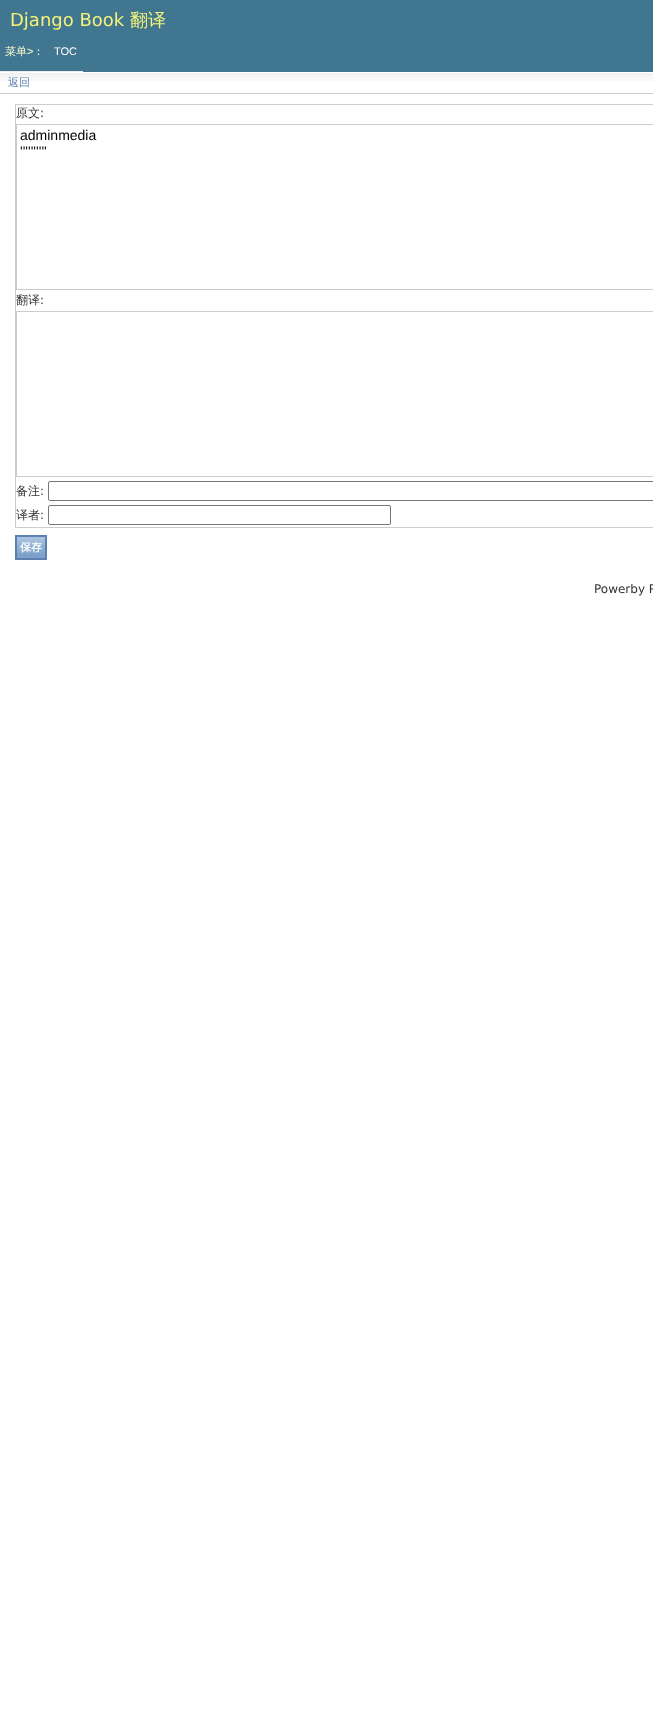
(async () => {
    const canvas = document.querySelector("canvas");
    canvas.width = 653;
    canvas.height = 1729;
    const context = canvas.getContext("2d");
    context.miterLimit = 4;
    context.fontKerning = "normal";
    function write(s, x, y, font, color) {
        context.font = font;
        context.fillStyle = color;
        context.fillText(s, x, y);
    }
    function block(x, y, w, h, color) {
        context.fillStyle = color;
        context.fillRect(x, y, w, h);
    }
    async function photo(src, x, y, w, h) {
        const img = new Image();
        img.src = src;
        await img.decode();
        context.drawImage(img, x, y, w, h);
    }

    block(0, 0, 653, 1729, "rgb(255, 255, 255)");
    block(0, 0, 653, 72, "rgb(65, 118, 144)");
    write("Django Book", 10, 26, "18px DejaVu Sans", "rgb(244, 243, 121)");
    write("翻译", 130, 26, "500 18px WenQuanYi Zen Hei", "rgb(244, 243, 121)");
    write("菜单", 5, 55, "500 11px WenQuanYi Zen Hei", "rgb(255, 255, 204)");
    write(">", 27, 55, "11px Liberation Sans", "rgb(255, 255, 204)");
    write("：", 33, 55, "500 11px WenQuanYi Zen Hei", "rgb(255, 255, 204)");
    block(0, 71, 83, 1, "rgb(238, 238, 238)");
    write("TOC", 54, 55, "11px Liberation Sans", "rgb(255, 255, 255)");
    await photo("media/1.png", 0, 73, 653, 8);
    block(0, 93, 653, 1, "rgb(204, 204, 204)");
    write("返回", 8, 86, "500 11px WenQuanYi Zen Hei", "rgb(91, 128, 178)");
    context.strokeStyle = "rgb(204, 204, 204)";
    context.strokeRect(15.5, 104.5, 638, 423);
    write("原文", 16, 117, "500 12px WenQuanYi Zen Hei", "rgb(51, 51, 51)");
    write(":", 40, 117, "12px DejaVu Sans", "rgb(51, 51, 51)");
    context.strokeRect(16.5, 124.5, 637, 165);
    write("adminmedia", 20, 140, "14px Liberation Sans", "rgb(0, 0, 0)");
    write("''''''''''", 20, 156, "14px Liberation Sans", "rgb(0, 0, 0)");
    write("翻译", 16, 304, "500 12px WenQuanYi Zen Hei", "rgb(51, 51, 51)");
    write(":", 40, 304, "12px DejaVu Sans", "rgb(51, 51, 51)");
    context.strokeRect(16.5, 311.5, 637, 165);
    write("备注", 16, 495, "500 12px WenQuanYi Zen Hei", "rgb(51, 51, 51)");
    write(":", 40, 495, "12px DejaVu Sans", "rgb(51, 51, 51)");
    context.beginPath();
    context.roundRect(48.5, 481.5, 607, 19, 1.5);
    context.strokeStyle = "rgb(118, 118, 118)";
    context.stroke();
    write("译者", 16, 519, "500 12px WenQuanYi Zen Hei", "rgb(51, 51, 51)");
    write(":", 40, 519, "12px DejaVu Sans", "rgb(51, 51, 51)");
    context.beginPath();
    context.roundRect(48.5, 505.5, 342, 19, 1.5);
    context.stroke();
    block(17, 554, 28, 4, "rgb(124, 160, 199)");
    await photo("media/2.png", 17, 537, 28, 17);
    context.strokeStyle = "rgb(91, 128, 178)";
    context.lineWidth = 2;
    context.strokeRect(16, 536, 30, 23);
    write("保存", 20, 551, "bold 11px WenQuanYi Zen Hei", "rgb(255, 255, 255)");
    write("Powerby P", 594, 593, "12px DejaVu Sans", "rgb(51, 51, 51)");
})();
